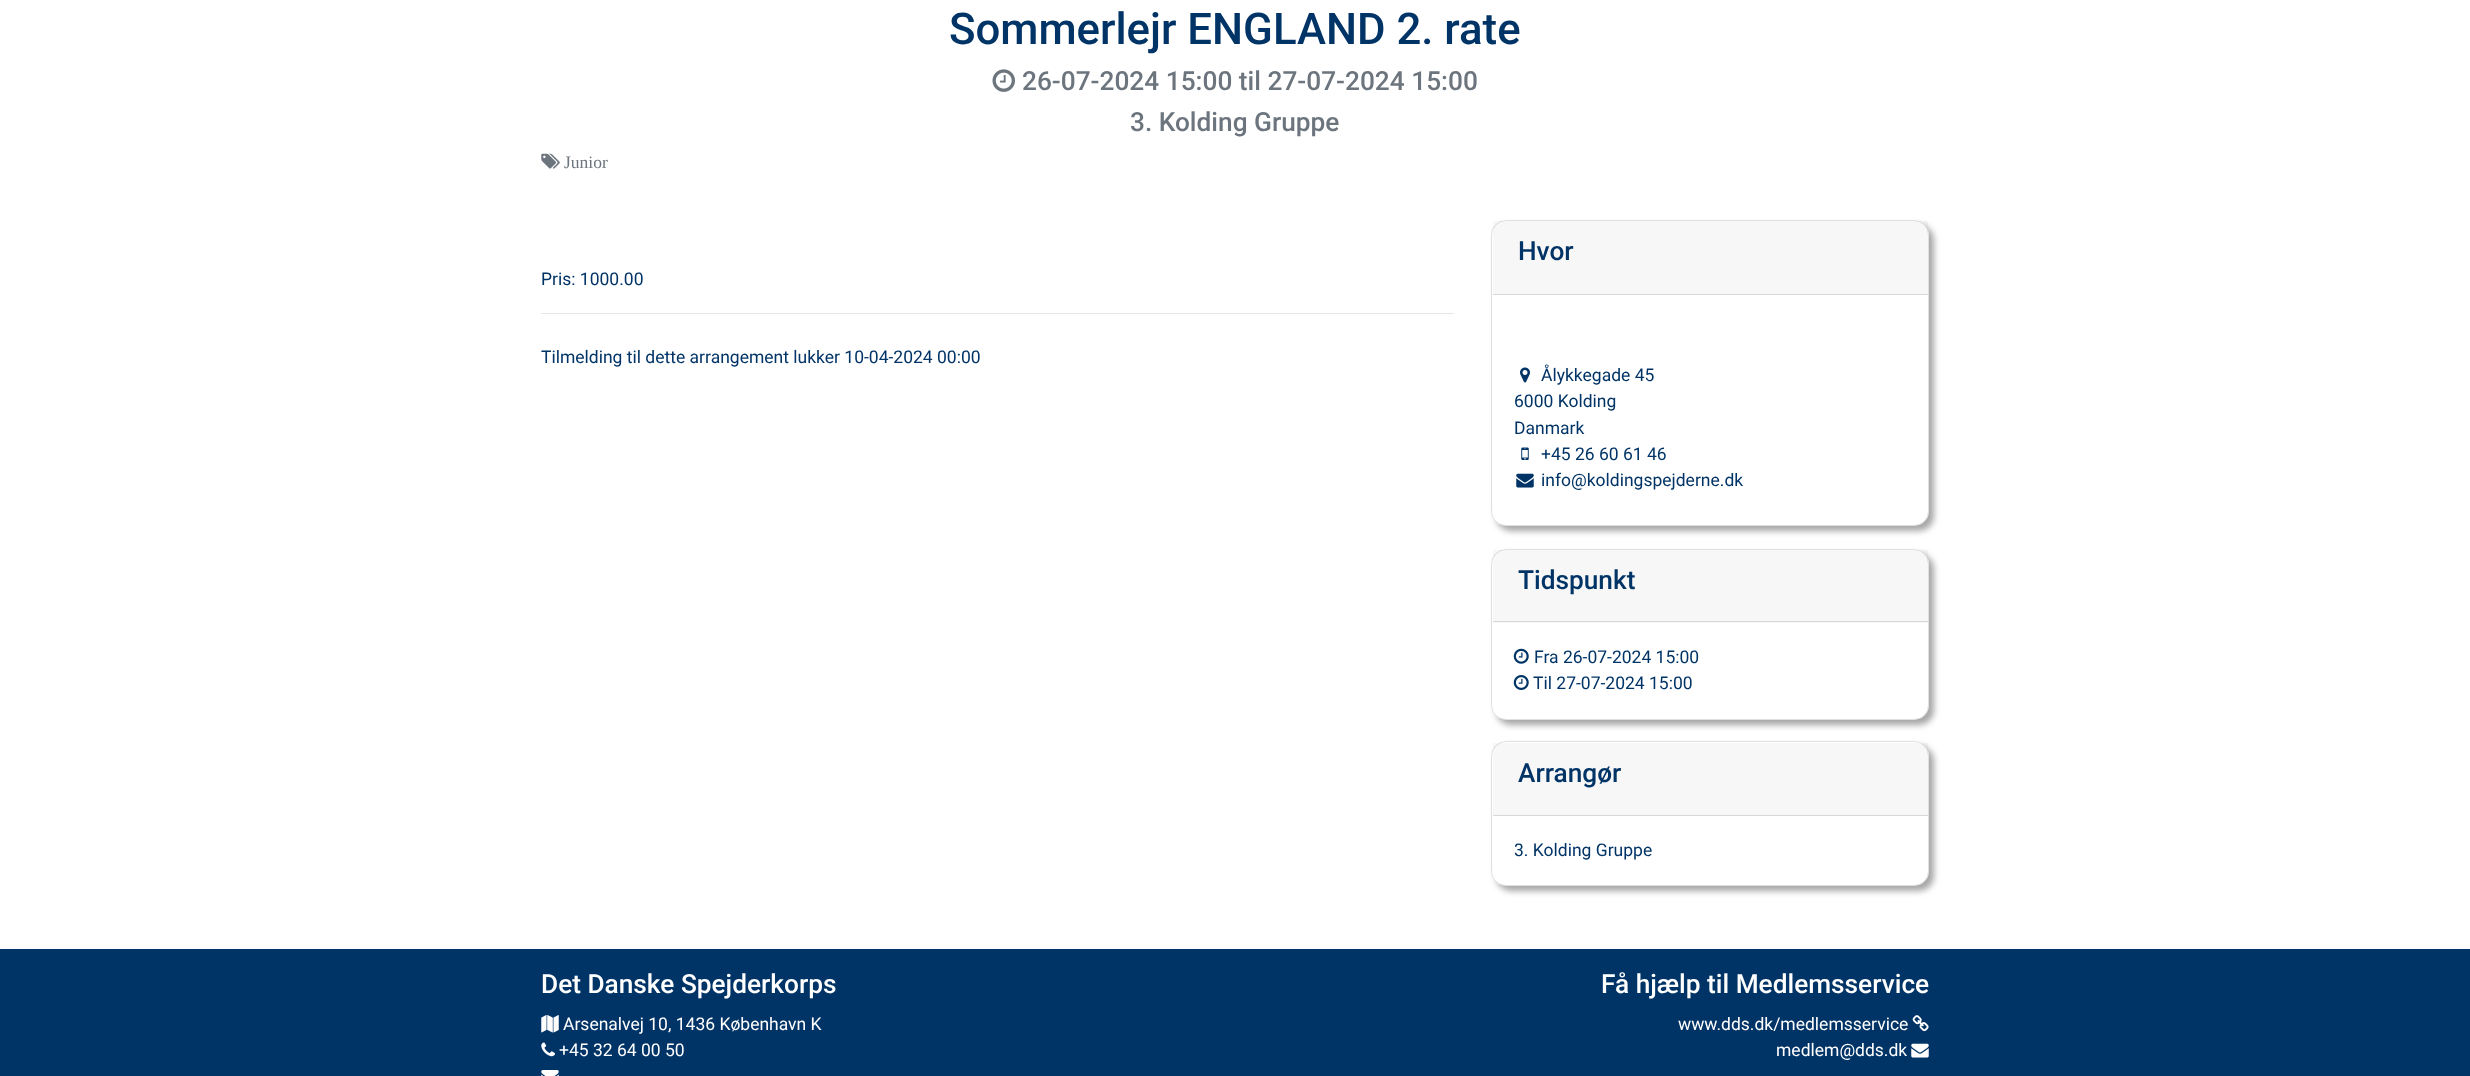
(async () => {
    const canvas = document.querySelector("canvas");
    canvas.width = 2470;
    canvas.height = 1076;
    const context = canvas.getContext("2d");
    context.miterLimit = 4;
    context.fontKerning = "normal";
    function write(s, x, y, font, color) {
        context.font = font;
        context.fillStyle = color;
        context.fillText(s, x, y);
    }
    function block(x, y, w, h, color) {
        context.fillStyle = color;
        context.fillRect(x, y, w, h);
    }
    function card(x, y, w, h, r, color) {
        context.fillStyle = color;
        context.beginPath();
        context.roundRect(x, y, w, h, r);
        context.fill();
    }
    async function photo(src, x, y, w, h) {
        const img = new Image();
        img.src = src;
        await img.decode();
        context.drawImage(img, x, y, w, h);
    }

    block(0, 0, 2470, 1076, "rgb(255, 255, 255)");
    write("Sommerlejr ENGLAND 2. rate", 949, 44, "500 43.75px Roboto", "rgb(0, 51, 102)");
    await photo("media/1.png", 992, 69, 23, 23);
    write("26-07-2024 15:00 til 27-07-2024 15:00", 1022, 90, "500 26.25px Roboto", "rgb(108, 117, 125)");
    write("3. Kolding Gruppe", 1130, 131, "500 26.25px Roboto", "rgb(108, 117, 125)");
    await photo("media/2.png", 541, 153, 19, 16);
    write("Junior", 564, 168, "17.5px Liberation Serif", "rgb(108, 117, 125)");
    write("Pris: 1000.00", 541, 285, "17.5px Roboto", "rgb(0, 51, 102)");
    block(541, 313, 913, 1, "rgb(230, 230, 230)");
    write("Tilmelding til dette arrangement lukker 10-04-2024 00:00", 541, 363, "17.5px Roboto", "rgb(0, 51, 102)");
    context.fillStyle = "rgba(0, 0, 0, 0.35)";
    context.filter = "blur(3px)";
    context.beginPath();
    context.roundRect(1496, 225, 438, 306, 15);
    context.fill();
    context.filter = "none";
    card(1491, 220, 438, 306, 15, "rgb(255, 255, 255)");
    context.beginPath();
    context.roundRect(1491.5, 220.5, 437, 305, 14.5);
    context.strokeStyle = "rgba(0, 0, 0, 0.12)";
    context.stroke();
    block(1493, 221, 435, 73, "rgba(0, 0, 0, 0.03)");
    block(1493, 294, 435, 1, "rgb(216, 216, 216)");
    write("Hvor", 1518, 260, "500 26.25px Roboto", "rgb(0, 51, 102)");
    await photo("media/3.png", 1520, 367, 10, 16);
    write("Ålykkegade 45", 1541, 381, "17.5px Roboto", "rgb(0, 51, 102)");
    write("6000 Kolding", 1514, 407, "17.5px Roboto", "rgb(0, 51, 102)");
    write("Danmark", 1514, 434, "17.5px Roboto", "rgb(0, 51, 102)");
    await photo("media/4.png", 1521, 447, 8, 13);
    write("+45 26 60 61 46", 1541, 460, "17.5px Roboto", "rgb(0, 51, 102)");
    await photo("media/5.png", 1516, 473, 18, 15);
    write("info@koldingspejderne.dk", 1541, 486, "17.5px Roboto", "rgb(0, 51, 102)");
    context.fillStyle = "rgba(0, 0, 0, 0.35)";
    context.filter = "blur(3px)";
    context.beginPath();
    context.roundRect(1496, 554, 438, 171, 15);
    context.fill();
    context.filter = "none";
    card(1491, 549, 438, 171, 15, "rgb(255, 255, 255)");
    context.beginPath();
    context.roundRect(1491.5, 549.5, 437, 170, 14.5);
    context.stroke();
    block(1493, 550, 435, 73, "rgba(0, 0, 0, 0.03)");
    block(1493, 621, 435, 1, "rgb(216, 216, 216)");
    write("Tidspunkt", 1518, 589, "500 26.25px Roboto", "rgb(0, 51, 102)");
    await photo("media/6.png", 1513, 648, 16, 16);
    write("Fra 26-07-2024 15:00", 1534, 663, "17.5px Roboto", "rgb(0, 51, 102)");
    await photo("media/7.png", 1513, 675, 16, 15);
    write("Til 27-07-2024 15:00", 1533, 689, "17.5px Roboto", "rgb(0, 51, 102)");
    context.fillStyle = "rgba(0, 0, 0, 0.35)";
    context.filter = "blur(3px)";
    context.beginPath();
    context.roundRect(1496, 746, 438, 145, 15);
    context.fill();
    context.filter = "none";
    card(1491, 741, 438, 145, 15, "rgb(255, 255, 255)");
    context.beginPath();
    context.roundRect(1491.5, 741.5, 437, 144, 14.5);
    context.stroke();
    block(1493, 743, 435, 72, "rgba(0, 0, 0, 0.03)");
    block(1493, 815, 435, 1, "rgb(216, 216, 216)");
    write("Arrangør", 1518, 782, "500 26.25px Roboto", "rgb(0, 51, 102)");
    write("3. Kolding Gruppe", 1514, 856, "17.5px Roboto", "rgb(0, 51, 102)");
    block(0, 949, 2470, 127, "rgb(0, 51, 102)");
    write("Det Danske Spejderkorps", 541, 993, "500 26.25px Roboto", "rgb(255, 255, 255)");
    await photo("media/8.png", 541, 1015, 18, 18);
    write("Arsenalvej 10, 1436 København K", 563, 1030, "17.5px Roboto", "rgb(255, 255, 255)");
    await photo("media/9.png", 541, 1042, 14, 15);
    write("+45 32 64 00 50", 559, 1056, "17.5px Roboto", "rgb(255, 255, 255)");
    await photo("media/10.png", 541, 1070, 18, 6);
    write("Få hjælp til Medlemsservice", 1601, 993, "500 26.25px Roboto", "rgb(255, 255, 255)");
    write("www.dds.dk/medlemsservice", 1678, 1030, "17.5px Roboto", "rgb(255, 255, 255)");
    await photo("media/11.png", 1912, 1015, 17, 17);
    write("medlem@dds.dk", 1776, 1056, "17.5px Roboto", "rgb(255, 255, 255)");
    await photo("media/12.png", 1911, 1043, 18, 15);
})();
